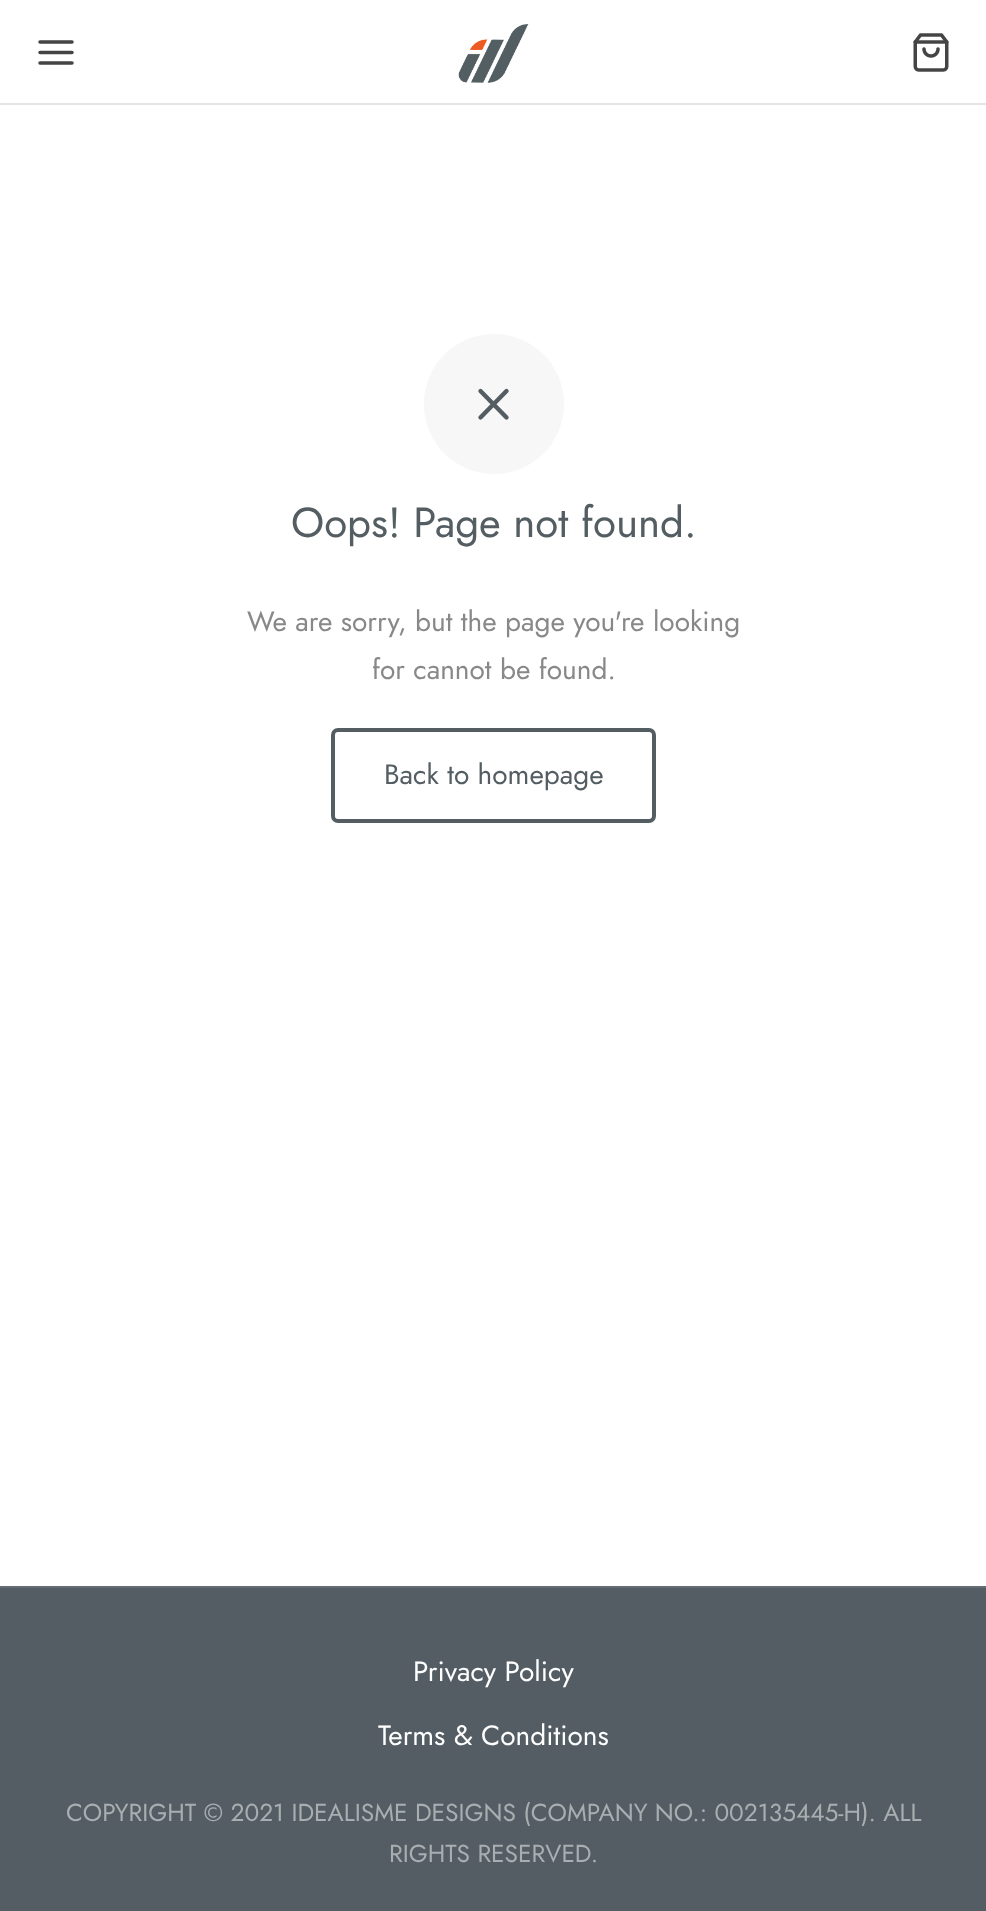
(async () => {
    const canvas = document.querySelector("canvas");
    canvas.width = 986;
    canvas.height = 1911;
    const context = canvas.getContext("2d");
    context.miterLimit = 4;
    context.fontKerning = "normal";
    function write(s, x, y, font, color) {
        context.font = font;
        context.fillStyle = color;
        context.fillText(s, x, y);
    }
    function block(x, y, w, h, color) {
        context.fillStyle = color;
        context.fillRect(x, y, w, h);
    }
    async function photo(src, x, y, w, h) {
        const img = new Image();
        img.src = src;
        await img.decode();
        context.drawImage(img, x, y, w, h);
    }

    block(0, 0, 986, 1911, "rgb(255, 255, 255)");
    context.beginPath();
    context.moveTo(40, 52.5);
    context.lineTo(72, 52.5);
    context.moveTo(40, 42);
    context.lineTo(72, 42);
    context.moveTo(40, 63);
    context.lineTo(72, 63);
    context.strokeStyle = "rgb(68, 68, 68)";
    context.lineWidth = 3.5;
    context.lineCap = "round";
    context.lineJoin = "round";
    context.stroke();
    await photo("media/1.png", 458, 24, 71, 59);
    await photo("media/2.png", 913, 33, 36, 39);
    block(0, 103, 986, 2, "rgb(230, 230, 230)");
    context.fillStyle = "rgb(247, 247, 247)";
    context.beginPath();
    context.arc(494, 404, 70, 0, Math.PI * 2);
    context.fill();
    context.beginPath();
    context.moveTo(506.5, 391);
    context.lineTo(480.5, 417.5);
    context.moveTo(480.5, 391);
    context.lineTo(506.5, 417.5);
    context.strokeStyle = "rgb(83, 93, 98)";
    context.lineWidth = 4.4;
    context.stroke();
    write("Oops! Page not found.", 291, 537, "42px Jost", "rgb(83, 93, 98)");
    write("We are sorry, but the page you're looking", 247, 631, "28px Jost", "rgb(136, 136, 136)");
    write("for cannot be found.", 372, 679, "28px Jost", "rgb(136, 136, 136)");
    context.beginPath();
    context.roundRect(333, 730, 321, 91, 5);
    context.lineWidth = 4;
    context.lineJoin = "miter";
    context.stroke();
    write("Back to homepage", 384, 784, "28px Jost", "rgb(83, 93, 98)");
    block(0, 1588, 986, 323, "rgb(83, 93, 99)");
    block(0, 1586, 986, 2, "rgb(100, 109, 115)");
    write("Privacy Policy", 413, 1681, "28px Jost", "rgb(255, 255, 255)");
    write("Terms & Conditions", 378, 1745, "28px Jost", "rgb(255, 255, 255)");
    write("COPYRIGHT © 2021 IDEALISME DESIGNS (COMPANY NO.: 002135445-H). ALL", 66, 1821, "24.5px Jost", "rgb(169, 174, 177)");
    write("RIGHTS RESERVED.", 389, 1862, "24.5px Jost", "rgb(169, 174, 177)");
})();
